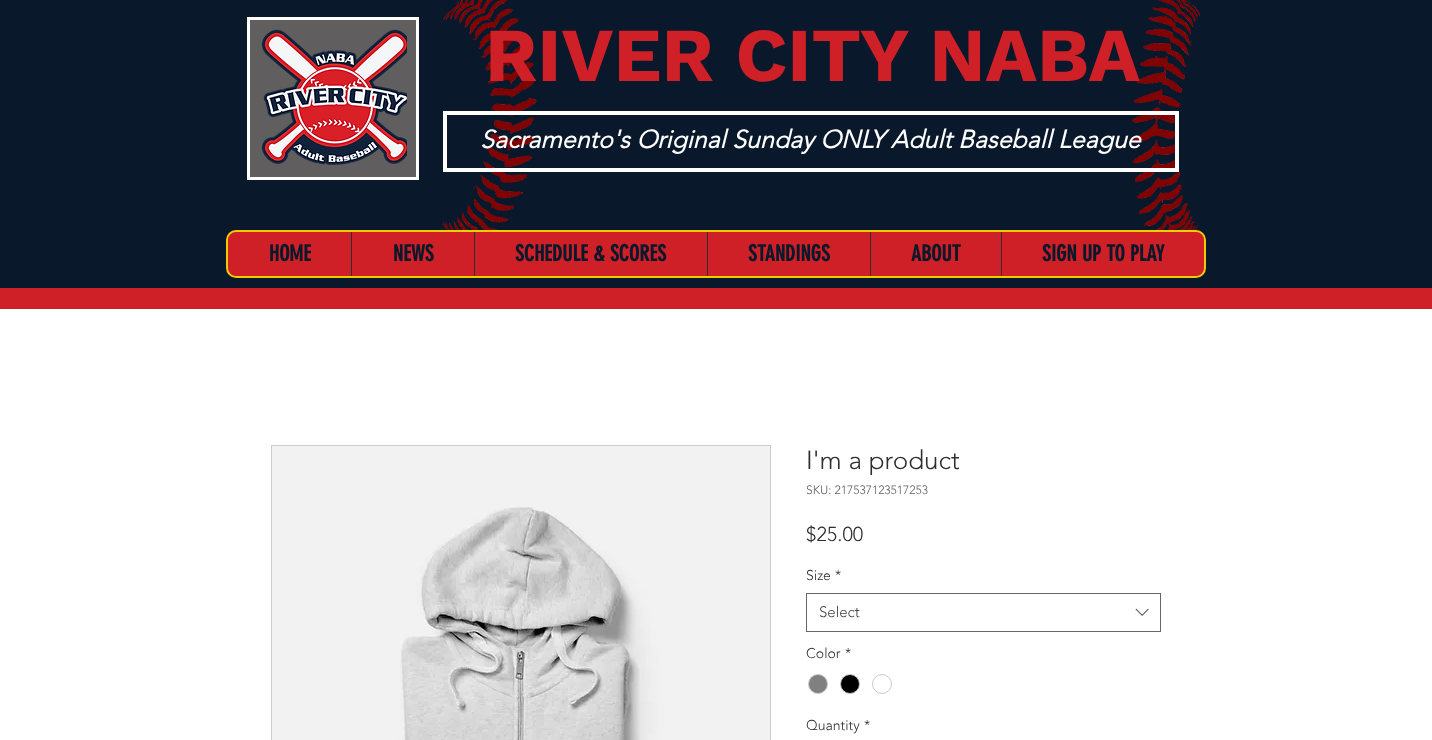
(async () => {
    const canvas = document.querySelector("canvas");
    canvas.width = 1432;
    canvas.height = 740;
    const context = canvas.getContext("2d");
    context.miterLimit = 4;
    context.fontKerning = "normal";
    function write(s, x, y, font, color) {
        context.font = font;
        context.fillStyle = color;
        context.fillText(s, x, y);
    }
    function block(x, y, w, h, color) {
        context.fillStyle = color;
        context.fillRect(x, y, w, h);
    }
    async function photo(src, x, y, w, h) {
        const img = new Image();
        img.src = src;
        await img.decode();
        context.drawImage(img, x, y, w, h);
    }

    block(0, 0, 1432, 740, "rgb(255, 255, 255)");
    block(0, 0, 1432, 288, "rgb(9, 24, 43)");
    context.fillStyle = "rgb(96, 94, 94)";
    context.beginPath();
    context.rect(248.5, 18.5, 169, 160);
    context.fill();
    context.strokeStyle = "rgb(255, 255, 255)";
    context.lineWidth = 3;
    context.stroke();
    await photo("media/1.png", 261, 29, 146, 136);
    await photo("media/2.png", 443, 0, 94, 230);
    await photo("media/3.png", 1132, 0, 68, 230);
    write("RIVER CITY NABA", 485, 81, "bold 76px Work Sans", "rgb(206, 32, 38)");
    context.lineWidth = 4;
    context.strokeRect(445, 113, 732, 57);
    write("Sacramento's Original Sunday ONLY Adult Baseball League", 480, 148, "italic bold 25px 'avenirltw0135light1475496'", "rgb(255, 255, 255)");
    context.fillStyle = "rgb(206, 32, 38)";
    context.beginPath();
    context.roundRect(227, 231, 978, 46, 9);
    context.fill();
    context.strokeStyle = "rgb(241, 204, 1)";
    context.lineWidth = 2;
    context.stroke();
    write("HOME", 269, 261, "bold 22px 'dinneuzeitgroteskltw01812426'", "rgb(9, 24, 43)");
    block(351, 232, 1, 44, "rgb(47, 46, 46)");
    write("NEWS", 393, 261, "bold 22px 'dinneuzeitgroteskltw01812426'", "rgb(9, 24, 43)");
    block(474, 232, 1, 44, "rgb(47, 46, 46)");
    write("SCHEDULE & SCORES", 515, 261, "bold 22px 'dinneuzeitgroteskltw01812426'", "rgb(9, 24, 43)");
    block(707, 232, 1, 44, "rgb(47, 46, 46)");
    write("STANDINGS", 748, 261, "bold 22px 'dinneuzeitgroteskltw01812426'", "rgb(9, 24, 43)");
    block(870, 232, 1, 44, "rgb(47, 46, 46)");
    write("ABOUT", 911, 261, "bold 22px 'dinneuzeitgroteskltw01812426'", "rgb(9, 24, 43)");
    block(1001, 232, 1, 44, "rgb(47, 46, 46)");
    write("SIGN UP TO PLAY", 1042, 261, "bold 22px 'dinneuzeitgroteskltw01812426'", "rgb(9, 24, 43)");
    block(0, 288, 1432, 21, "rgb(206, 32, 38)");
    context.strokeStyle = "rgb(204, 204, 204)";
    context.lineWidth = 1;
    context.strokeRect(271.5, 445.5, 499, 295);
    await photo("media/4.png", 272, 446, 498, 294);
    write("I'm a product", 806, 469, "300 26px 'avenirltw0135light1475496'", "rgb(47, 46, 46)");
    write("SKU: 217537123517253", 806, 494, "300 12px 'avenirltw0135light1475496'", "rgb(96, 94, 94)");
    write("$25.00", 806, 541, "300 20px 'avenirltw0135light1475496'", "rgb(47, 46, 46)");
    write("Size", 806, 580, "300 14px 'avenirltw0135light1475496'", "rgb(47, 46, 46)");
    write("*", 835, 580, "300 14px 'avenirltw0135light1475496'", "rgb(47, 46, 46)");
    context.strokeStyle = "rgb(102, 102, 102)";
    context.strokeRect(806.5, 593.5, 354, 38);
    write("Select", 819, 617, "300 15px 'avenirltw0135light1475496'", "rgb(68, 68, 68)");
    await photo("media/5.png", 1135, 608, 14, 8);
    write("Color", 806, 658, "300 14px 'avenirltw0135light1475496'", "rgb(47, 46, 46)");
    write("*", 845, 658, "300 14px 'avenirltw0135light1475496'", "rgb(47, 46, 46)");
    context.fillStyle = "rgb(128, 128, 128)";
    context.beginPath();
    context.arc(818, 684, 9.5, 0, Math.PI * 2);
    context.fill();
    context.strokeStyle = "rgb(201, 201, 201)";
    context.stroke();
    context.fillStyle = "rgb(0, 0, 0)";
    context.beginPath();
    context.arc(850, 684, 9.5, 0, Math.PI * 2);
    context.fill();
    context.stroke();
    context.beginPath();
    context.arc(882, 684, 9.5, 0, Math.PI * 2);
    context.stroke();
    write("Quantity", 806, 730, "300 14px 'avenirltw0135light1475496'", "rgb(47, 46, 46)");
    write("*", 864, 730, "300 14px 'avenirltw0135light1475496'", "rgb(47, 46, 46)");
})();
